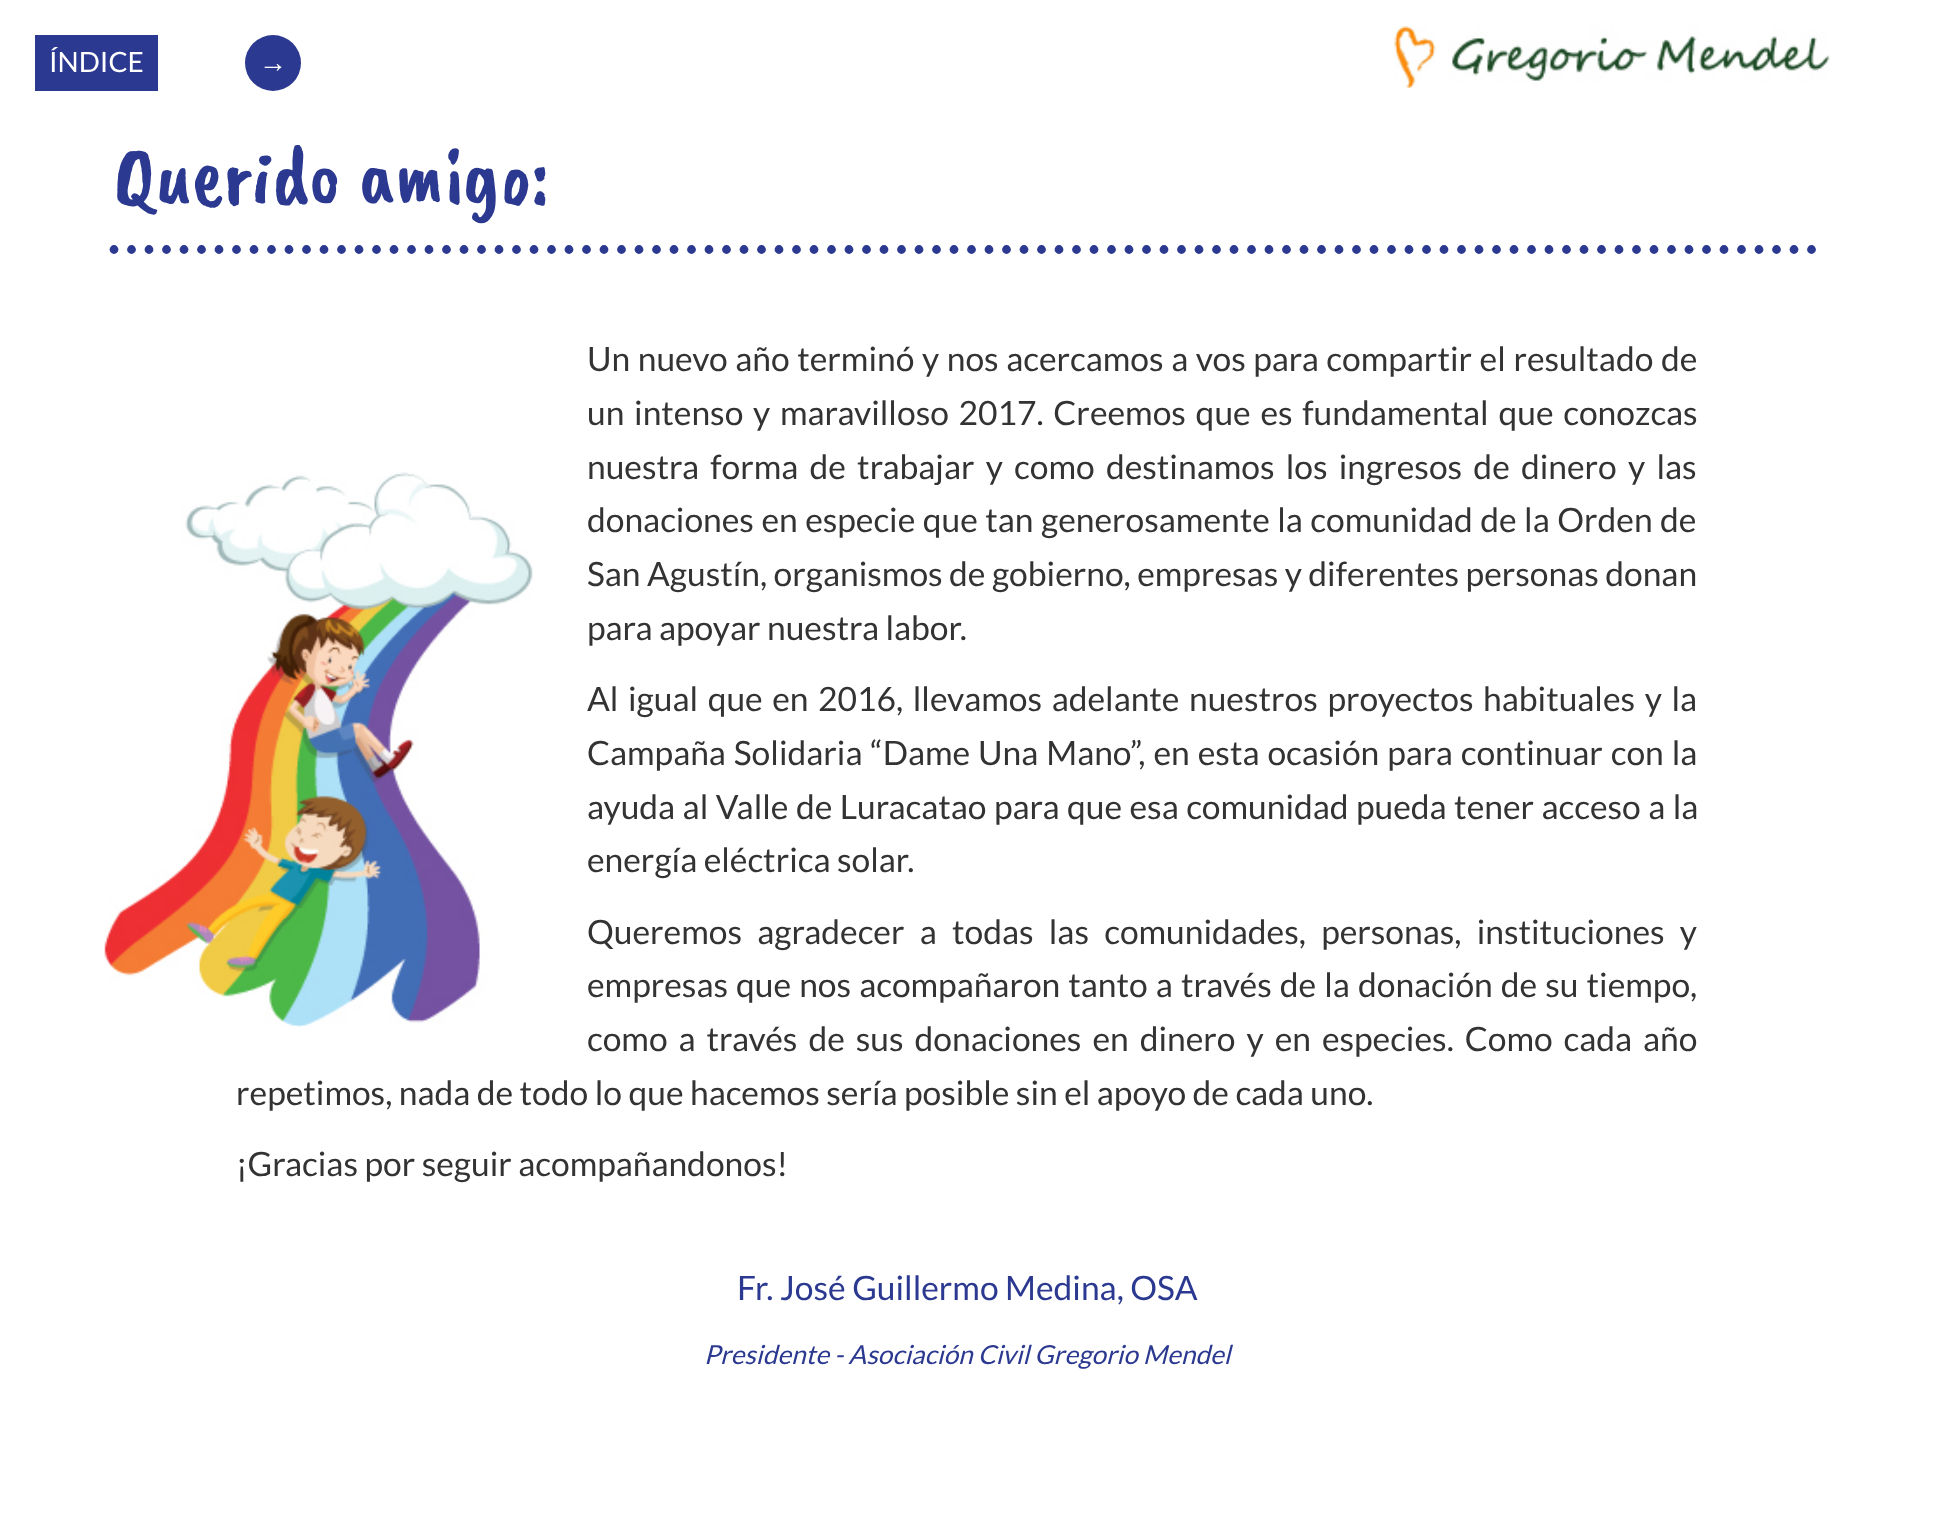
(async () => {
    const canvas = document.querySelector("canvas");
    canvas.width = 1933;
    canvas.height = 1513;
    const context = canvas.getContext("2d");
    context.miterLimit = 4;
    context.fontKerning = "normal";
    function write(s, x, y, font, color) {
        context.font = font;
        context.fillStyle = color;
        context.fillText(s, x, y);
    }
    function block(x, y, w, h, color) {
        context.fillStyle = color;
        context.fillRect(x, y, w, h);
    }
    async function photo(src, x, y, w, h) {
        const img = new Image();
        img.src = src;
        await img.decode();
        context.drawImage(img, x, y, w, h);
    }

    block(0, 0, 1933, 1513, "rgb(255, 255, 255)");
    await photo("media/1.png", 1394, 26, 436, 62);
    block(35, 35, 123, 56, "rgb(43, 57, 144)");
    write("ÍNDICE", 49, 72, "28px Lato", "rgb(255, 255, 255)");
    context.fillStyle = "rgb(43, 57, 144)";
    context.beginPath();
    context.arc(273, 63, 28, 0, Math.PI * 2);
    context.fill();
    write("→", 259, 72, "bold 28px Liberation Sans", "rgb(255, 255, 255)");
    context.beginPath();
    context.moveTo(114, 249.5);
    context.lineTo(1820, 249.5);
    context.strokeStyle = "rgb(43, 57, 144)";
    context.lineWidth = 8.8;
    context.lineCap = "round";
    context.setLineDash([0, 17.5]);
    context.stroke();
    write("Querido amigo:", 114, 203, "84px Caveat Brush", "rgb(43, 57, 144)");
    await photo("media/2.png", 104, 472, 429, 556);
    context.wordSpacing = "1.1px";
    write("Un nuevo año terminó y nos acercamos a vos para compartir el resultado de", 587, 371, "33.6px Lato", "rgb(51, 51, 51)");
    context.wordSpacing = "3.25px";
    write("un intenso y maravilloso 2017. Creemos que es fundamental que conozcas", 587, 425, "33.6px Lato", "rgb(51, 51, 51)");
    context.wordSpacing = "4.75px";
    write("nuestra forma de trabajar y como destinamos los ingresos de dinero y las", 587, 479, "33.6px Lato", "rgb(51, 51, 51)");
    context.wordSpacing = "1px";
    write("donaciones en especie que tan generosamente la comunidad de la Orden de", 587, 532, "33.6px Lato", "rgb(51, 51, 51)");
    context.wordSpacing = "0px";
    write("San Agustín, organismos de gobierno, empresas y diferentes personas donan", 587, 586, "33.6px Lato", "rgb(51, 51, 51)");
    write("para apoyar nuestra labor.", 587, 640, "33.6px Lato", "rgb(51, 51, 51)");
    context.wordSpacing = "3.1px";
    write("Al igual que en 2016, llevamos adelante nuestros proyectos habituales y la", 587, 711, "33.6px Lato", "rgb(51, 51, 51)");
    context.wordSpacing = "1.5px";
    write("Campaña Solidaria “Dame Una Mano”, en esta ocasión para continuar con la", 587, 765, "33.6px Lato", "rgb(51, 51, 51)");
    context.wordSpacing = "1px";
    write("ayuda al Valle de Luracatao para que esa comunidad pueda tener acceso a la", 587, 819, "33.6px Lato", "rgb(51, 51, 51)");
    context.wordSpacing = "0px";
    write("energía eléctrica solar.", 587, 872, "33.6px Lato", "rgb(51, 51, 51)");
    context.wordSpacing = "8.75px";
    write("Queremos agradecer a todas las comunidades, personas, instituciones y", 587, 944, "33.6px Lato", "rgb(51, 51, 51)");
    context.wordSpacing = "1.6px";
    write("empresas que nos acompañaron tanto a través de la donación de su tiempo,", 587, 997, "33.6px Lato", "rgb(51, 51, 51)");
    context.wordSpacing = "4.5px";
    write("como a través de sus donaciones en dinero y en especies. Como cada año", 587, 1051, "33.6px Lato", "rgb(51, 51, 51)");
    context.wordSpacing = "0px";
    write("repetimos, nada de todo lo que hacemos sería posible sin el apoyo de cada uno.", 236, 1105, "33.6px Lato", "rgb(51, 51, 51)");
    write("¡Gracias por seguir acompañandonos!", 236, 1176, "33.6px Lato", "rgb(51, 51, 51)");
    write("Fr. José Guillermo Medina, OSA", 737, 1300, "33.6px Lato", "rgb(43, 57, 144)");
    write("Presidente - Asociación Civil Gregorio Mendel", 704, 1364, "italic 26.25px Lato", "rgb(43, 57, 144)");
})();
